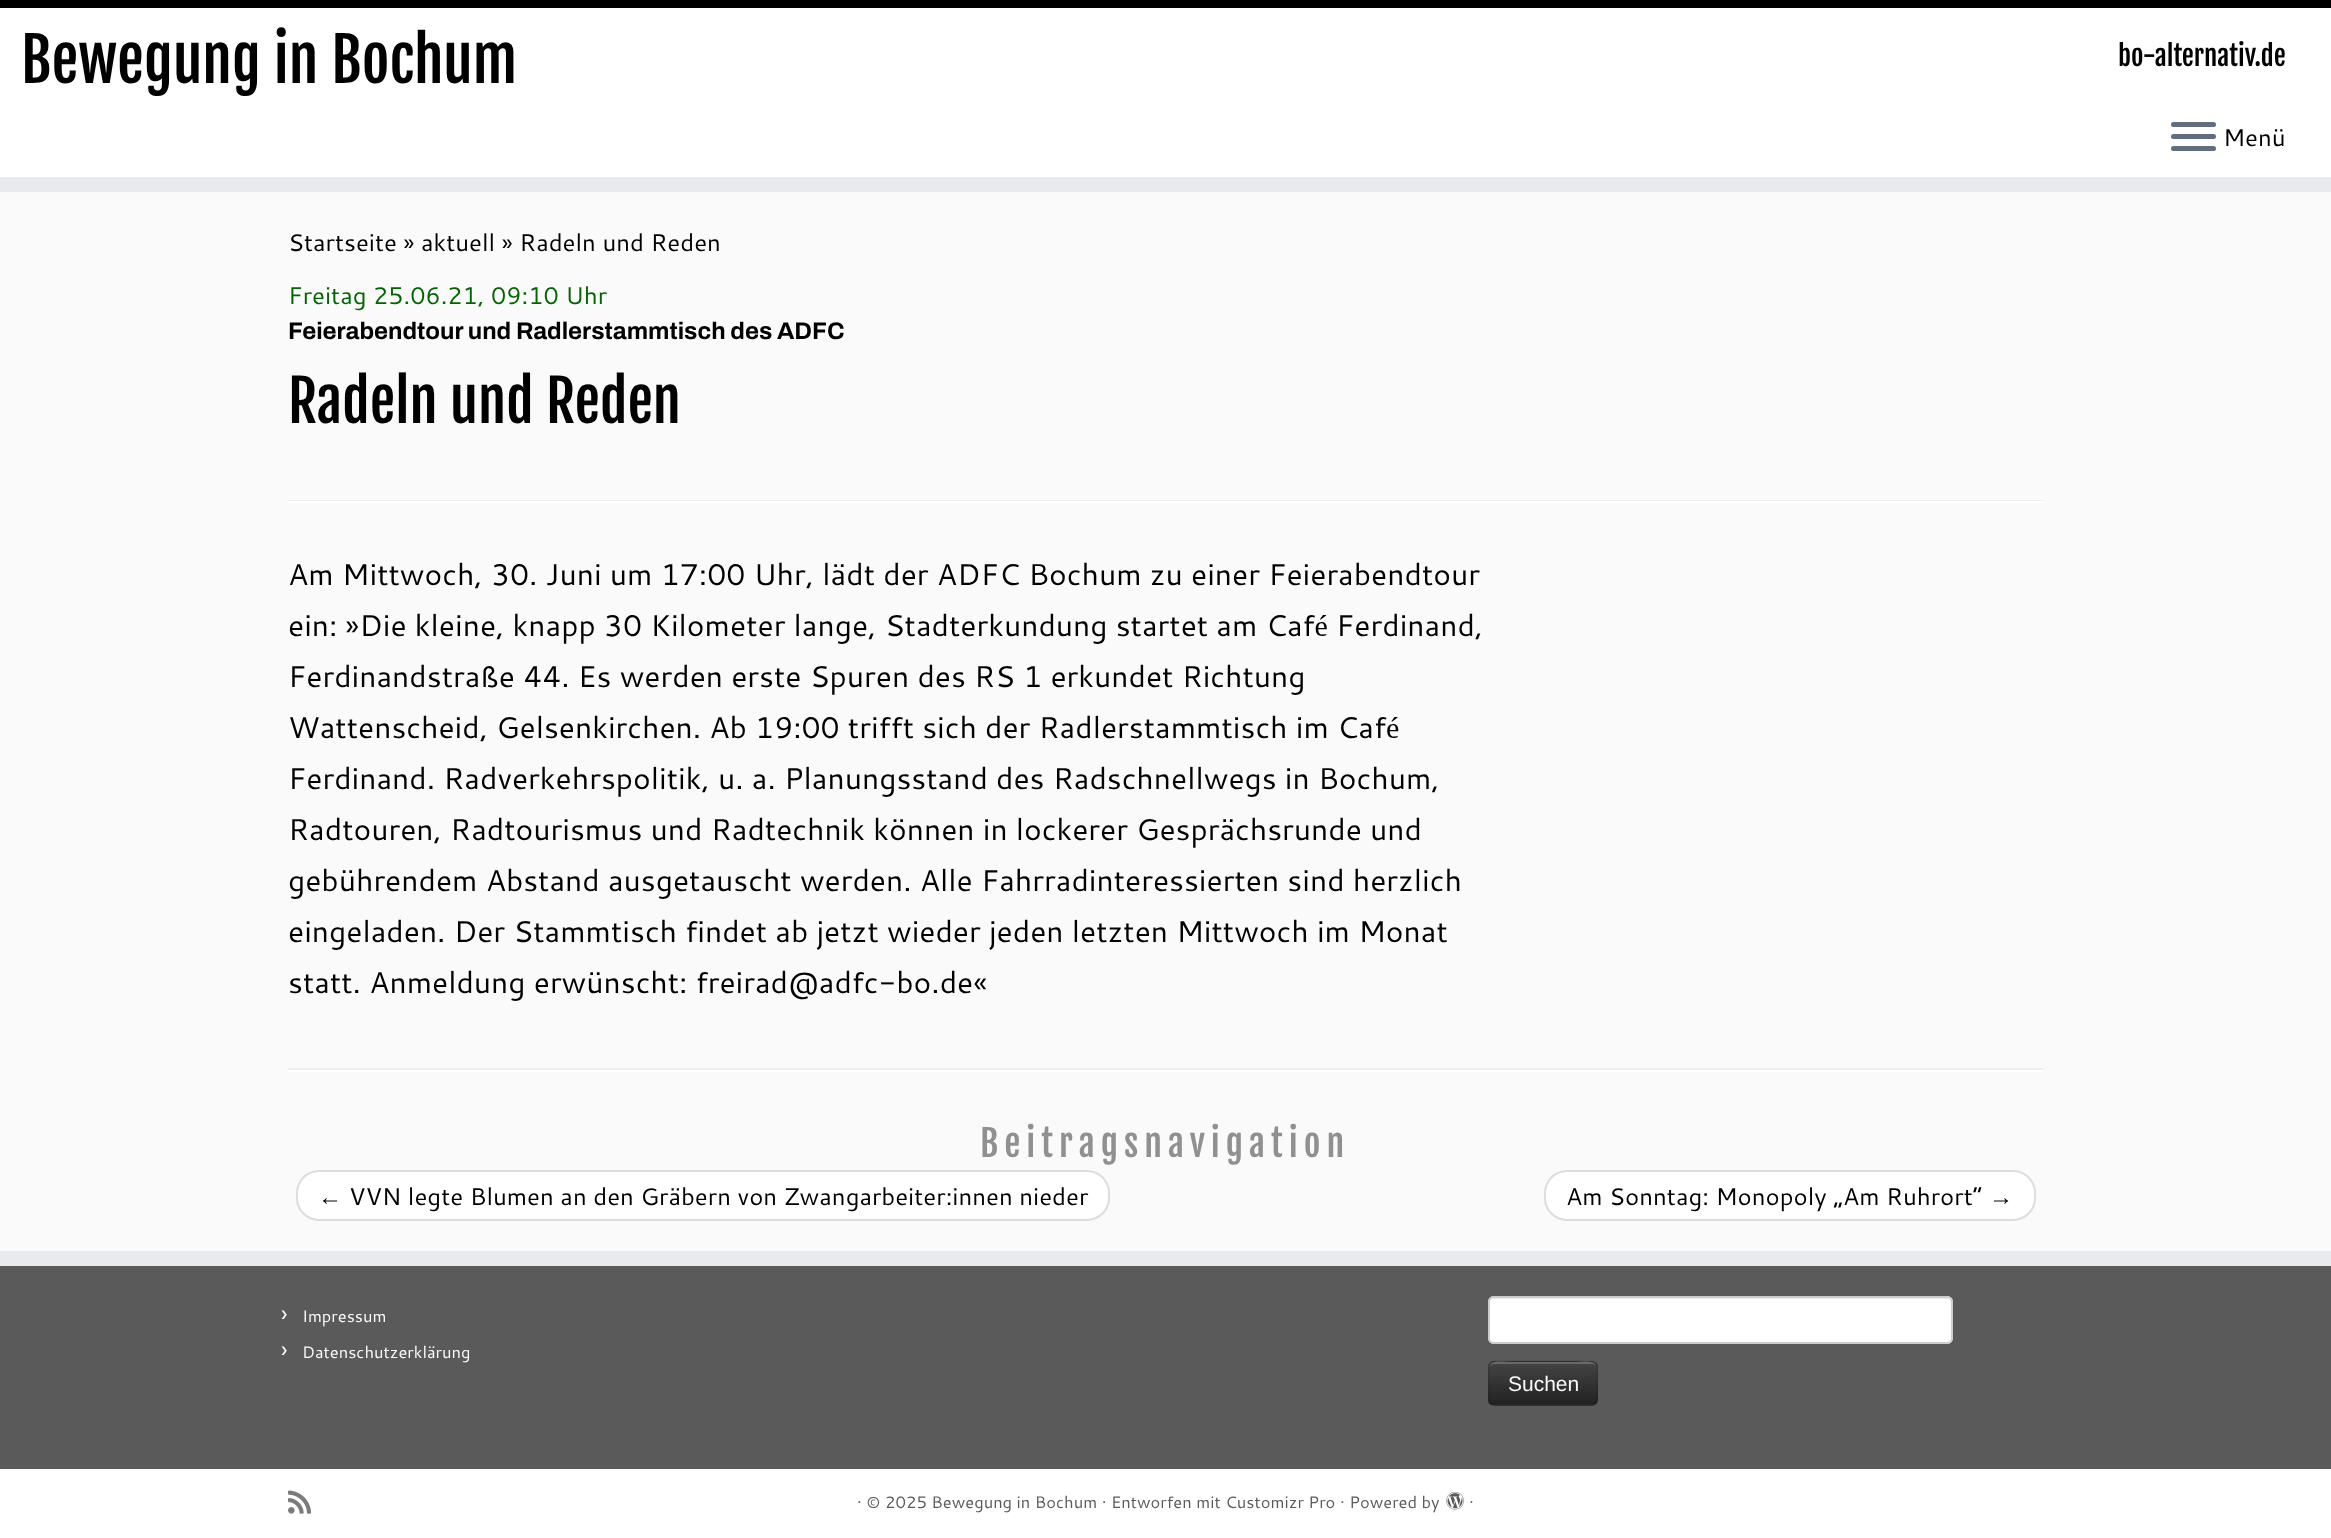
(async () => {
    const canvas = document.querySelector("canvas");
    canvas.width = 2331;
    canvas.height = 1538;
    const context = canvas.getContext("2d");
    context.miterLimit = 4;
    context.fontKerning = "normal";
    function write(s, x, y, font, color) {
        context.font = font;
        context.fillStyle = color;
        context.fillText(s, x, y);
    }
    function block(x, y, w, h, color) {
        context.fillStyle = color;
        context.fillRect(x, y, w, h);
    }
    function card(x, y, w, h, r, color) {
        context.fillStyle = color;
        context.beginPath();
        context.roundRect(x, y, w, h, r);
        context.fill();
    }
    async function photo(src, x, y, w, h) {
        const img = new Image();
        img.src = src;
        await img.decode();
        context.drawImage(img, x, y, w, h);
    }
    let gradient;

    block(0, 0, 2331, 1538, "rgb(250, 250, 250)");
    block(0, 8, 2331, 169, "rgb(255, 255, 255)");
    block(0, 0, 2331, 8, "rgb(0, 0, 0)");
    block(0, 177, 2331, 15, "rgb(233, 234, 238)");
    write("Bewegung in Bochum", 21, 83, "60px Fjalla One", "rgb(0, 0, 0)");
    write("bo-alternativ.de", 2118, 66, "27px Fjalla One", "rgb(0, 0, 0)");
    card(2171, 122, 45, 5, 2.5, "rgb(95, 111, 129)");
    card(2171, 134, 45, 5, 2.5, "rgb(95, 111, 129)");
    card(2171, 146, 45, 5, 2.5, "rgb(95, 111, 129)");
    write("Menü", 2223, 146, "24px Cantarell", "rgb(0, 0, 0)");
    write("Startseite » aktuell » Radeln und Reden", 288, 251, "24px Cantarell", "rgb(0, 0, 0)");
    write("Freitag 25.06.21, 09:10 Uhr", 288, 304, "24px Cantarell", "rgb(0, 102, 0)");
    write("Feierabendtour und Radlerstammtisch des ADFC", 288, 339, "600 24px Archivo", "rgb(0, 0, 0)");
    write("Radeln und Reden", 288, 423, "57px Fjalla One", "rgb(0, 0, 0)");
    block(288, 500, 1755, 1, "rgb(238, 238, 238)");
    block(288, 501, 1755, 2, "rgb(255, 255, 255)");
    write("Am Mittwoch, 30. Juni um 17:00 Uhr, lädt der ADFC Bochum zu einer Feierabendtour", 288, 585, "30px Cantarell", "rgb(0, 0, 0)");
    write("ein: »Die kleine, knapp 30 Kilometer lange, Stadterkundung startet am Café Ferdinand,", 288, 636, "30px Cantarell", "rgb(0, 0, 0)");
    write("Ferdinandstraße 44. Es werden erste Spuren des RS 1 erkundet Richtung", 288, 687, "30px Cantarell", "rgb(0, 0, 0)");
    write("Wattenscheid, Gelsenkirchen. Ab 19:00 trifft sich der Radlerstammtisch im Café", 288, 738, "30px Cantarell", "rgb(0, 0, 0)");
    write("Ferdinand. Radverkehrspolitik, u. a. Planungsstand des Radschnellwegs in Bochum,", 288, 789, "30px Cantarell", "rgb(0, 0, 0)");
    write("Radtouren, Radtourismus und Radtechnik können in lockerer Gesprächsrunde und", 288, 840, "30px Cantarell", "rgb(0, 0, 0)");
    write("gebührendem Abstand ausgetauscht werden. Alle Fahrradinteressierten sind herzlich", 288, 891, "30px Cantarell", "rgb(0, 0, 0)");
    write("eingeladen. Der Stammtisch findet ab jetzt wieder jeden letzten Mittwoch im Monat", 288, 942, "30px Cantarell", "rgb(0, 0, 0)");
    write("statt. Anmeldung erwünscht: freirad@adfc-bo.de«", 288, 993, "30px Cantarell", "rgb(0, 0, 0)");
    block(288, 1068, 1755, 2, "rgb(238, 238, 238)");
    block(288, 1070, 1755, 2, "rgb(255, 255, 255)");
    context.letterSpacing = "6px";
    write("Beitragsnavigation", 980, 1157, "36px Fjalla One", "rgb(144, 144, 144)");
    context.fillStyle = "rgb(255, 255, 255)";
    context.beginPath();
    context.roundRect(297, 1171, 812, 49, 22);
    context.fill();
    context.strokeStyle = "rgb(221, 221, 221)";
    context.lineWidth = 2;
    context.stroke();
    context.letterSpacing = "0px";
    write("←", 318, 1205, "24px Liberation Serif", "rgb(0, 0, 0)");
    write("VVN legte Blumen an den Gräbern von Zwangarbeiter:innen nieder", 349, 1205, "24px Cantarell", "rgb(0, 0, 0)");
    context.fillStyle = "rgb(255, 255, 255)";
    context.beginPath();
    context.roundRect(1545, 1171, 490, 49, 22);
    context.fill();
    context.stroke();
    write("Am Sonntag: Monopoly „Am Ruhrort“", 1566, 1205, "24px Cantarell", "rgb(0, 0, 0)");
    write("→", 1989, 1205, "24px Liberation Serif", "rgb(0, 0, 0)");
    block(0, 1266, 2331, 203, "rgb(90, 90, 90)");
    block(0, 1251, 2331, 15, "rgb(233, 234, 238)");
    write("›", 281, 1322, "24px Cantarell", "rgb(250, 250, 250)");
    write("Impressum", 302, 1322, "16.5px Cantarell", "rgb(250, 250, 250)");
    write("›", 281, 1358, "24px Cantarell", "rgb(250, 250, 250)");
    write("Datenschutzerklärung", 302, 1358, "16.5px Cantarell", "rgb(250, 250, 250)");
    card(1488, 1296, 465, 48, 6, "rgb(255, 255, 255)");
    context.fillStyle = "rgb(236, 236, 236)";
    context.beginPath();
    context.moveTo(1494, 1299);
    context.lineTo(1947, 1299);
    context.bezierCurveTo(1949, 1299, 1952, 1301, 1952, 1304);
    context.bezierCurveTo(1952, 1301, 1950, 1298, 1947, 1298);
    context.lineTo(1495, 1298);
    context.bezierCurveTo(1492, 1298, 1490, 1301, 1490, 1304);
    context.bezierCurveTo(1490, 1301, 1492, 1299, 1494, 1299);
    context.closePath();
    context.fill();
    context.beginPath();
    context.roundRect(1489, 1297, 463, 46, 5);
    context.strokeStyle = "rgb(204, 204, 204)";
    context.stroke();
    card(1488, 1361, 110, 45, 6, "rgb(54, 54, 54)");
    context.save();
    context.beginPath();
    context.roundRect(1488, 1361, 110, 45, 6);
    context.clip();
    gradient = context.createLinearGradient(1543, 1362, 1543, 1404);
    gradient.addColorStop(0, "rgb(68, 68, 68)");
    gradient.addColorStop(1, "rgb(34, 34, 34)");
    context.fillStyle = gradient;
    context.fillRect(1488, 1362, 110, 42);
    context.restore();
    context.fillStyle = "rgba(255, 255, 255, 0.2)";
    context.beginPath();
    context.moveTo(1494, 1364);
    context.lineTo(1592, 1364);
    context.bezierCurveTo(1594, 1364, 1596, 1366, 1596, 1368);
    context.bezierCurveTo(1596, 1358, 1580, 1362, 1575, 1362);
    context.lineTo(1511, 1362);
    context.bezierCurveTo(1506, 1362, 1490, 1358, 1490, 1368);
    context.bezierCurveTo(1490, 1366, 1492, 1364, 1494, 1364);
    context.closePath();
    context.fill();
    context.beginPath();
    context.moveTo(1595, 1403);
    context.lineTo(1592, 1404.5);
    context.lineTo(1493.5, 1404.5);
    context.lineTo(1490.5, 1403);
    context.strokeStyle = "rgba(0, 0, 0, 0.25)";
    context.lineWidth = 1.5;
    context.stroke();
    context.beginPath();
    context.moveTo(1490.5, 1403);
    context.bezierCurveTo(1488, 1401, 1489, 1397, 1489, 1394);
    context.lineTo(1489, 1383);
    context.bezierCurveTo(1489, 1358.5, 1485, 1361, 1510, 1361);
    context.lineTo(1575, 1361);
    context.bezierCurveTo(1600.5, 1361, 1597, 1358.5, 1597, 1383);
    context.lineTo(1597, 1394);
    context.bezierCurveTo(1597, 1397, 1597.5, 1401, 1595, 1403);
    context.strokeStyle = "rgba(0, 0, 0, 0.1)";
    context.stroke();
    write("Suchen", 1508, 1391, "21px Liberation Sans", "rgb(250, 250, 250)");
    block(0, 1469, 2331, 69, "rgb(255, 255, 255)");
    await photo("media/1.png", 288, 1490, 24, 24);
    write("· © 2025 Bewegung in Bochum · Entworfen mit Customizr Pro · Powered by", 857, 1508, "16.5px Cantarell", "rgb(90, 90, 90)");
    await photo("media/2.png", 1446, 1491, 18, 19);
    write("·", 1469, 1508, "16.5px Cantarell", "rgb(90, 90, 90)");
})();
